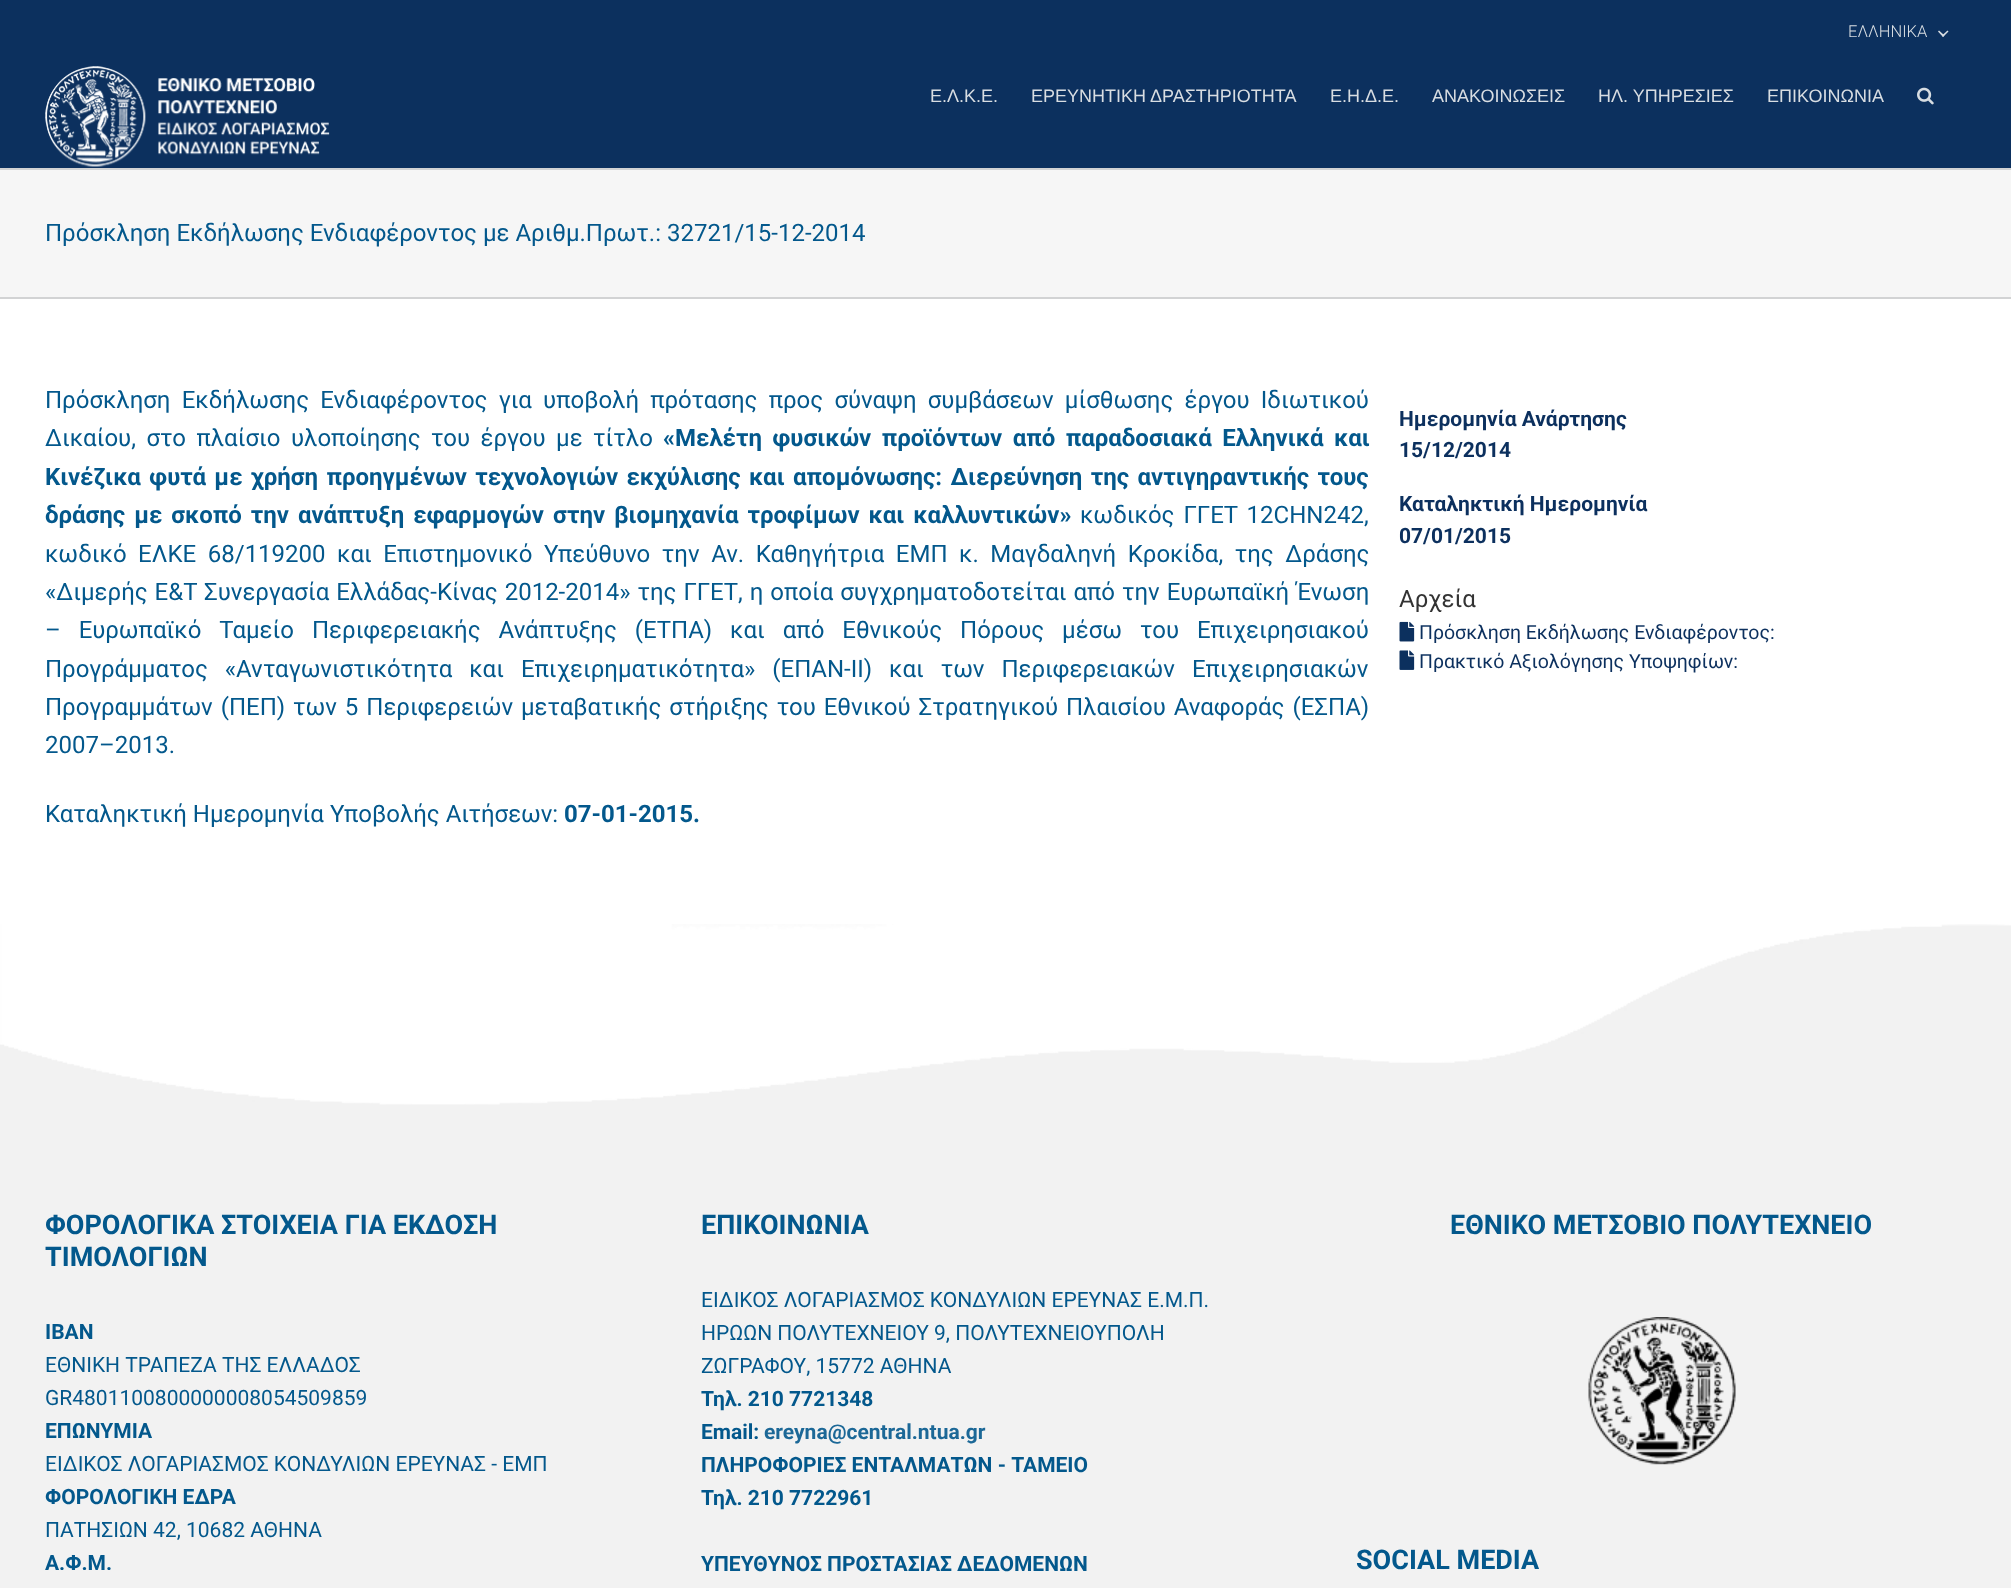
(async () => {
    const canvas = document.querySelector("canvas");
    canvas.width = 2011;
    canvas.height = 1588;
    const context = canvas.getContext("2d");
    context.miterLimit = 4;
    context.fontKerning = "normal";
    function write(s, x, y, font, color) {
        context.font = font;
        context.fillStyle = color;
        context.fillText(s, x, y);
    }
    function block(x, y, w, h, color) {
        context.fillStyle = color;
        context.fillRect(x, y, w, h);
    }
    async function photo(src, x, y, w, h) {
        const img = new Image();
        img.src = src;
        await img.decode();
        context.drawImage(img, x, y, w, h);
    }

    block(0, 0, 2011, 1588, "rgb(255, 255, 255)");
    block(0, 0, 2011, 168, "rgb(12, 48, 94)");
    write("ΕΛΛΗΝΙΚΑ", 1848, 37, "300 16.5px Roboto", "rgb(216, 221, 226)");
    context.beginPath();
    context.moveTo(1947.5, 30.5);
    context.lineTo(1948.5, 31.5);
    context.lineTo(1943, 37);
    context.lineTo(1942, 35.5);
    context.closePath();
    context.fill();
    context.beginPath();
    context.moveTo(1939, 30.5);
    context.lineTo(1944.5, 35.5);
    context.lineTo(1943, 37);
    context.lineTo(1938, 31.5);
    context.closePath();
    context.fill();
    await photo("media/1.png", 45, 66, 285, 101);
    write("Ε.Λ.Κ.Ε.", 930, 102, "18px Liberation Sans", "rgb(216, 221, 226)");
    write("ΕΡΕΥΝΗΤΙΚΗ ΔΡΑΣΤΗΡΙΟΤΗΤΑ", 1031, 102, "18px Liberation Sans", "rgb(216, 221, 226)");
    write("Ε.Η.Δ.Ε.", 1330, 102, "18px Liberation Sans", "rgb(216, 221, 226)");
    write("ΑΝΑΚΟΙΝΩΣΕΙΣ", 1432, 102, "18px Liberation Sans", "rgb(216, 221, 226)");
    write("ΗΛ. ΥΠΗΡΕΣΙΕΣ", 1598, 102, "18px Liberation Sans", "rgb(216, 221, 226)");
    write("ΕΠΙΚΟΙΝΩΝΙΑ", 1767, 102, "18px Liberation Sans", "rgb(216, 221, 226)");
    await photo("media/2.png", 1917, 87, 17, 18);
    block(0, 170, 2011, 127, "rgb(246, 246, 246)");
    block(0, 168, 2011, 2, "rgb(210, 211, 212)");
    block(0, 297, 2011, 2, "rgb(210, 211, 212)");
    write("Πρόσκληση Εκδήλωσης Ενδιαφέροντος με Αριθμ.Πρωτ.: 32721/15-12-2014", 45, 241, "24px Roboto", "rgb(3, 88, 140)");
    context.wordSpacing = "5.25px";
    write("Πρόσκληση Εκδήλωσης Ενδιαφέροντος για υποβολή πρότασης προς σύναψη συμβάσεων μίσθωσης έργου Ιδιωτικού", 45, 408, "24px Roboto", "rgb(3, 88, 140)");
    context.wordSpacing = "4.5px";
    write("Δικαίου, στο πλαίσιο υλοποίησης του έργου με τίτλο", 45, 446, "24px Roboto", "rgb(3, 88, 140)");
    write("«Μελέτη φυσικών προϊόντων από παραδοσιακά Ελληνικά και", 663, 446, "bold 24px Roboto", "rgb(3, 88, 140)");
    context.wordSpacing = "2.4px";
    write("Κινέζικα φυτά με χρήση προηγμένων τεχνολογιών εκχύλισης και απομόνωσης: Διερεύνηση της αντιγηραντικής τους", 45, 485, "bold 24px Roboto", "rgb(3, 88, 140)");
    context.wordSpacing = "3px";
    write("δράσης με σκοπό την ανάπτυξη εφαρμογών στην βιομηχανία τροφίμων και καλλυντικών»", 45, 523, "bold 24px Roboto", "rgb(3, 88, 140)");
    write("κωδικός ΓΓΕΤ 12CHN242,", 1080, 523, "24px Roboto", "rgb(3, 88, 140)");
    context.wordSpacing = "5.6px";
    write("κωδικό ΕΛΚΕ 68/119200 και Επιστημονικό Υπεύθυνο την Αν. Καθηγήτρια ΕΜΠ κ. Μαγδαληνή Κροκίδα, της Δράσης", 45, 562, "24px Roboto", "rgb(3, 88, 140)");
    context.wordSpacing = "1px";
    write("«Διμερής Ε&Τ Συνεργασία Ελλάδας-Κίνας 2012-2014» της ΓΓΕΤ, η οποία συγχρηματοδοτείται από την Ευρωπαϊκή Ένωση", 45, 600, "24px Roboto", "rgb(3, 88, 140)");
    context.wordSpacing = "12px";
    write("– Ευρωπαϊκό Ταμείο Περιφερειακής Ανάπτυξης (ΕΤΠΑ) και από Εθνικούς Πόρους μέσω του Επιχειρησιακού", 45, 638, "24px Roboto", "rgb(3, 88, 140)");
    context.wordSpacing = "11px";
    write("Προγράμματος «Ανταγωνιστικότητα και Επιχειρηματικότητα» (ΕΠΑΝ-ΙΙ) και των Περιφερειακών Επιχειρησιακών", 45, 677, "24px Roboto", "rgb(3, 88, 140)");
    context.wordSpacing = "2px";
    write("Προγραμμάτων (ΠΕΠ) των 5 Περιφερειών μεταβατικής στήριξης του Εθνικού Στρατηγικού Πλαισίου Αναφοράς (ΕΣΠΑ)", 45, 715, "24px Roboto", "rgb(3, 88, 140)");
    context.wordSpacing = "0px";
    write("2007–2013.", 45, 753, "24px Roboto", "rgb(3, 88, 140)");
    write("Καταληκτική Ημερομηνία Υποβολής Αιτήσεων:", 45, 822, "24px Roboto", "rgb(3, 88, 140)");
    write("07-01-2015.", 564, 822, "bold 24px Roboto", "rgb(3, 88, 140)");
    write("Ημερομηνία Ανάρτησης", 1399, 426, "bold 21px Roboto", "rgb(12, 48, 94)");
    write("15/12/2014", 1399, 457, "bold 21px Roboto", "rgb(12, 48, 94)");
    write("Καταληκτική Ημερομηνία", 1399, 511, "bold 21px Roboto", "rgb(12, 48, 94)");
    write("07/01/2015", 1399, 543, "bold 21px Roboto", "rgb(12, 48, 94)");
    write("Αρχεία", 1399, 607, "24px Roboto", "rgb(51, 51, 51)");
    await photo("media/3.png", 1399, 621, 16, 21);
    write("Πρόσκληση Εκδήλωσης Ενδιαφέροντος:", 1419, 639, "19.5px Roboto", "rgb(12, 48, 94)");
    await photo("media/4.png", 1399, 650, 16, 20);
    write("Πρακτικό Αξιολόγησης Υποψηφίων:", 1419, 668, "19.5px Roboto", "rgb(12, 48, 94)");
    await photo("media/5.png", 0, 924, 2011, 219);
    block(0, 1143, 2011, 445, "rgb(242, 242, 242)");
    write("ΦΟΡΟΛΟΓΙΚΑ ΣΤΟΙΧΕΙΑ ΓΙΑ ΕΚΔΟΣΗ", 45, 1234, "bold 27px Roboto", "rgb(3, 88, 140)");
    write("ΤΙΜΟΛΟΓΙΩΝ", 45, 1266, "bold 27px Roboto", "rgb(3, 88, 140)");
    write("IBAN", 45, 1339, "bold 21px Roboto", "rgb(3, 88, 140)");
    write("ΕΘΝΙΚΗ ΤΡΑΠΕΖΑ ΤΗΣ ΕΛΛΑΔΟΣ", 45, 1372, "21px Roboto", "rgb(3, 88, 140)");
    write("GR4801100800000008054509859", 45, 1405, "21px Roboto", "rgb(3, 88, 140)");
    write("ΕΠΩΝΥΜΙΑ", 45, 1438, "bold 21px Roboto", "rgb(3, 88, 140)");
    write("ΕΙΔΙΚΟΣ ΛΟΓΑΡΙΑΣΜΟΣ ΚΟΝΔΥΛΙΩΝ ΕΡΕΥΝΑΣ - ΕΜΠ", 45, 1471, "21px Roboto", "rgb(3, 88, 140)");
    write("ΦΟΡΟΛΟΓΙΚΗ ΕΔΡΑ", 45, 1504, "bold 21px Roboto", "rgb(3, 88, 140)");
    write("ΠΑΤΗΣΙΩΝ 42, 10682 ΑΘΗΝΑ", 45, 1537, "21px Roboto", "rgb(3, 88, 140)");
    write("A.Φ.Μ.", 45, 1570, "bold 21px Roboto", "rgb(3, 88, 140)");
    write("ΕΠΙΚΟΙΝΩΝΙΑ", 701, 1234, "bold 27px Roboto", "rgb(3, 88, 140)");
    write("ΕΙΔΙΚΟΣ ΛΟΓΑΡΙΑΣΜΟΣ ΚΟΝΔΥΛΙΩΝ ΕΡΕΥΝΑΣ Ε.Μ.Π.", 701, 1307, "21px Roboto", "rgb(3, 88, 140)");
    write("ΗΡΩΩΝ ΠΟΛΥΤΕΧΝΕΙΟΥ 9, ΠΟΛΥΤΕΧΝΕΙΟΥΠΟΛΗ", 701, 1340, "21px Roboto", "rgb(3, 88, 140)");
    write("ΖΩΓΡΑΦΟΥ, 15772 ΑΘΗΝΑ", 701, 1373, "21px Roboto", "rgb(3, 88, 140)");
    write("Τηλ. 210 7721348", 701, 1406, "bold 21px Roboto", "rgb(3, 88, 140)");
    write("Email:", 701, 1439, "bold 21px Roboto", "rgb(3, 88, 140)");
    write("ereyna@central.ntua.gr", 764, 1439, "bold 21px Roboto", "rgb(28, 104, 151)");
    write("ΠΛΗΡΟΦΟΡΙΕΣ ΕΝΤΑΛΜΑΤΩΝ - ΤΑΜΕΙΟ", 701, 1472, "bold 21px Roboto", "rgb(3, 88, 140)");
    write("Τηλ. 210 7722961", 701, 1505, "bold 21px Roboto", "rgb(3, 88, 140)");
    write("ΥΠΕΥΘYΝΟΣ ΠΡΟΣΤΑΣΙΑΣ ΔΕΔΟΜΕΝΩΝ", 701, 1571, "bold 21px Roboto", "rgb(3, 88, 140)");
    write("ΕΘΝΙΚΟ ΜΕΤΣΟΒΙΟ ΠΟΛΥΤΕΧΝΕΙΟ", 1450, 1234, "bold 27px Roboto", "rgb(3, 88, 140)");
    await photo("media/6.png", 1588, 1317, 148, 148);
    write("SOCIAL MEDIA", 1356, 1569, "bold 27px Roboto", "rgb(3, 88, 140)");
})();
